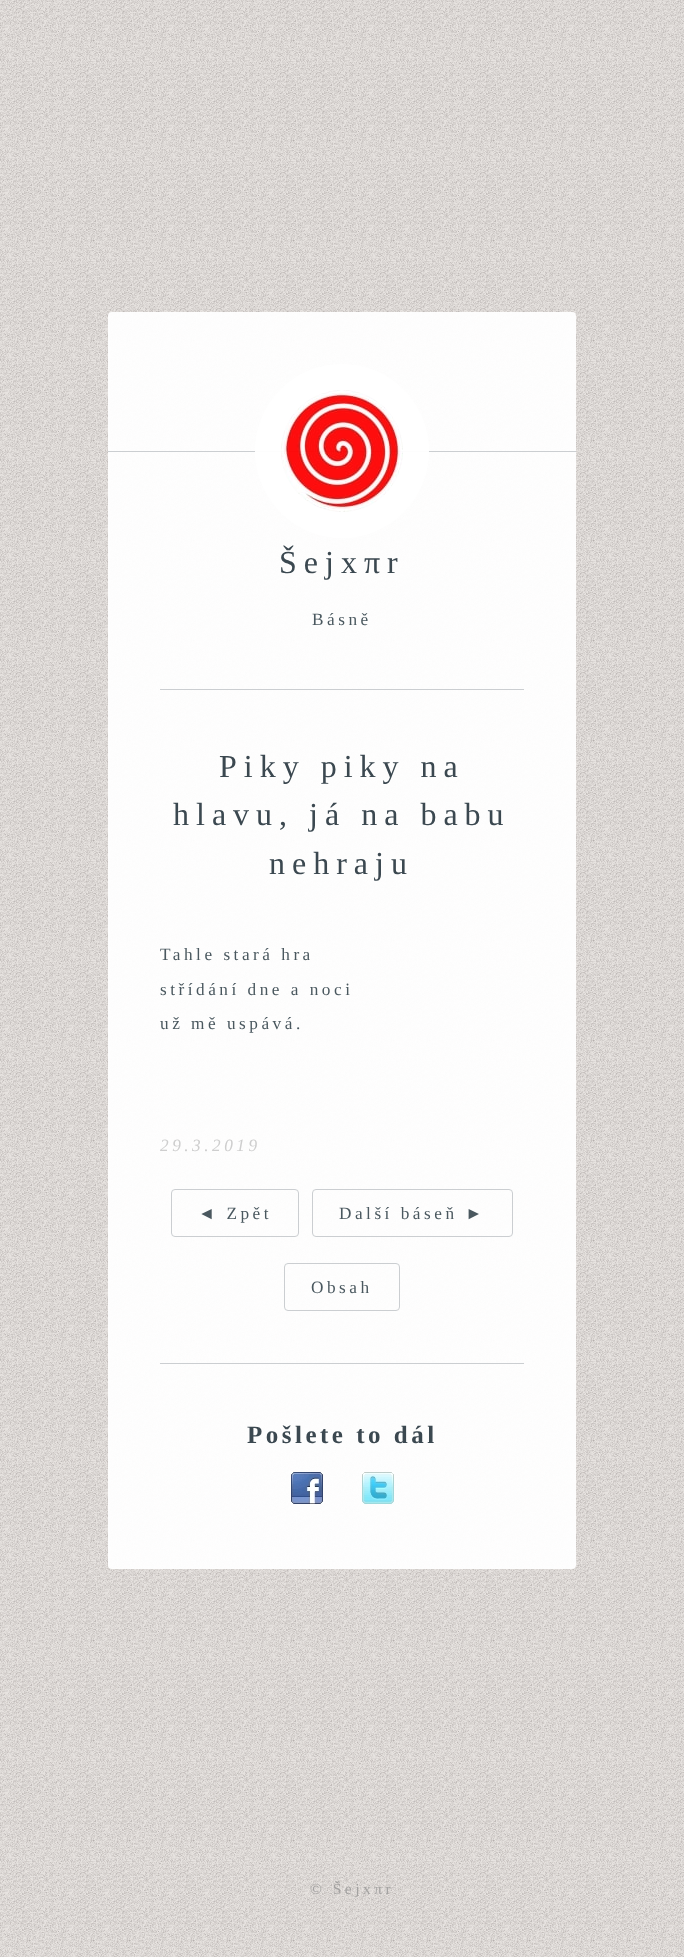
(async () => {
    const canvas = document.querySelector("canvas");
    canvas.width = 684;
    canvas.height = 1957;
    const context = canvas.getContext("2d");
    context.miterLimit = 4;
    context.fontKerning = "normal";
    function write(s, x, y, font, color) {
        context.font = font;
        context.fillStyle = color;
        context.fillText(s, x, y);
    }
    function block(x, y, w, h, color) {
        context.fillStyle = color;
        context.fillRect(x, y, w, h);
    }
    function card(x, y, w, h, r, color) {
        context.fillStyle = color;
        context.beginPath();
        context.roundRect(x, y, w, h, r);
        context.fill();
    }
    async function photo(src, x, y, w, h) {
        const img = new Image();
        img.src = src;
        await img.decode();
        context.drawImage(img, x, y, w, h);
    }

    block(0, 0, 684, 1957, "rgb(255, 255, 255)");
    await photo("media/1.png", 0, 0, 684, 1957);
    card(108, 312, 468, 1257, 4, "rgba(255, 255, 255, 0.95)");
    block(108, 451, 468, 1, "rgb(203, 206, 209)");
    context.beginPath();
    context.arc(342, 451, 74, 0, Math.PI * 2);
    context.strokeStyle = "rgba(255, 255, 255, 0.95)";
    context.lineWidth = 26;
    context.stroke();
    await photo("media/2.png", 281, 390, 122, 122);
    context.letterSpacing = "7px";
    write("Šejxπr", 279, 573, "32px Liberation Serif", "rgb(59, 72, 80)");
    context.letterSpacing = "3.5px";
    write("Básně", 312, 625, "17.25px Liberation Serif", "rgb(74, 88, 95)");
    block(160, 689, 364, 1, "rgb(203, 206, 209)");
    context.letterSpacing = "7px";
    write("Piky piky na", 219, 777, "32px Liberation Serif", "rgb(59, 72, 80)");
    write("hlavu, já na babu", 173, 825, "32px Liberation Serif", "rgb(59, 72, 80)");
    write("nehraju", 269, 874, "32px Liberation Serif", "rgb(59, 72, 80)");
    context.letterSpacing = "3.5px";
    write("Tahle stará hra", 160, 960, "17.25px Liberation Serif", "rgb(74, 88, 95)");
    write("střídání dne a noci", 160, 995, "17.25px Liberation Serif", "rgb(74, 88, 95)");
    write("už mě uspává.", 160, 1029, "17.25px Liberation Serif", "rgb(74, 88, 95)");
    write("29.3.2019", 160, 1151, "italic 17.25px Liberation Serif", "rgb(206, 206, 206)");
    context.beginPath();
    context.roundRect(171.5, 1189.5, 127, 47, 3.5);
    context.strokeStyle = "rgb(203, 206, 209)";
    context.lineWidth = 1;
    context.stroke();
    write("◄ Zpět", 198, 1219, "17.25px Liberation Serif", "rgb(74, 88, 95)");
    context.beginPath();
    context.roundRect(312.5, 1189.5, 200, 47, 3.5);
    context.stroke();
    write("Další báseň ►", 339, 1219, "17.25px Liberation Serif", "rgb(74, 88, 95)");
    context.beginPath();
    context.roundRect(284.5, 1263.5, 115, 47, 3.5);
    context.stroke();
    write("Obsah", 311, 1293, "17.25px Liberation Serif", "rgb(74, 88, 95)");
    block(160, 1363, 364, 1, "rgb(203, 206, 209)");
    write("Pošlete to dál", 247, 1443, "bold 25px Liberation Serif", "rgb(59, 72, 80)");
    await photo("media/3.png", 291, 1472, 32, 32);
    await photo("media/4.png", 362, 1472, 32, 32);
    write("© Šejxπr", 310, 1894, "15.5px Liberation Serif", "rgb(163, 162, 161)");
})();
